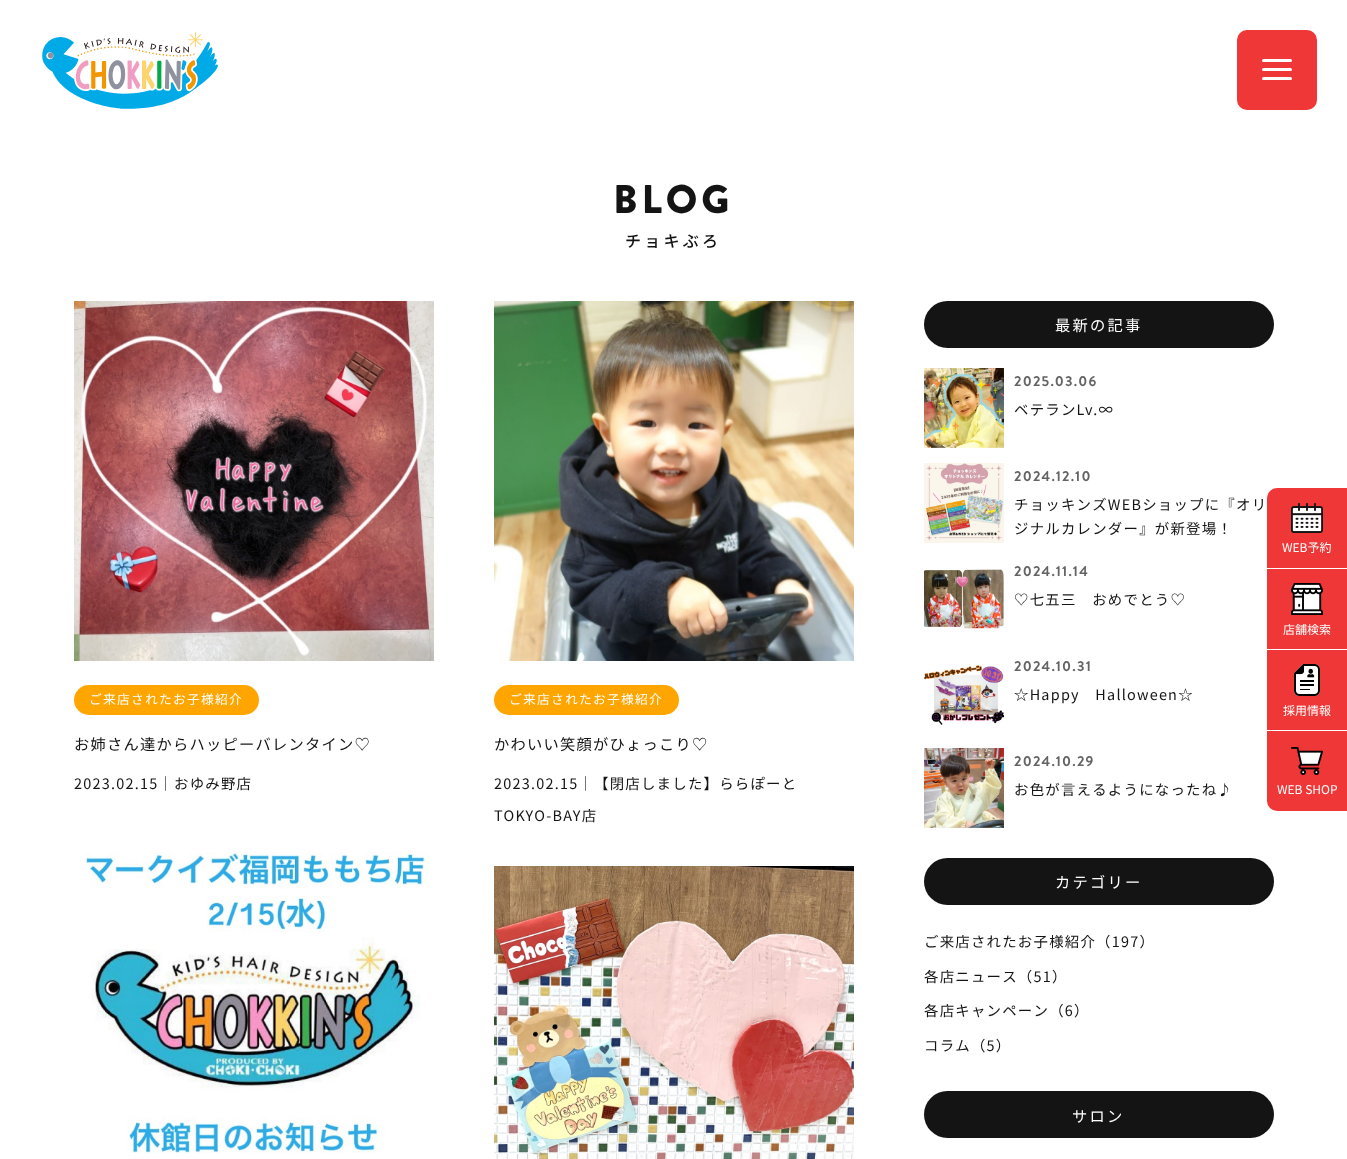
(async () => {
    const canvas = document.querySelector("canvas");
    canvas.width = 1347;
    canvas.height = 1159;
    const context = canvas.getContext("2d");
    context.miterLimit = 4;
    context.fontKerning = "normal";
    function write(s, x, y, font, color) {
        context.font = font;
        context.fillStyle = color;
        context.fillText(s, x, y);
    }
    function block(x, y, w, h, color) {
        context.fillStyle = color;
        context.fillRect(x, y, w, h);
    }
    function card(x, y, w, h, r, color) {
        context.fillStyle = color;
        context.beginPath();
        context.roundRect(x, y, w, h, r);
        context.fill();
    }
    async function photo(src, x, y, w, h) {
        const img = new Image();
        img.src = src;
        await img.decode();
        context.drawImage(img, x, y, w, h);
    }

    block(0, 0, 1347, 1159, "rgb(255, 255, 255)");
    await photo("media/1.png", 42, 32, 176, 77);
    card(1237, 30, 80, 80, 10, "rgb(239, 55, 55)");
    card(1262, 59, 30, 3, 1.5, "rgb(255, 255, 255)");
    card(1262, 68, 30, 3, 1.5, "rgb(255, 255, 255)");
    card(1262, 77, 30, 3, 1.5, "rgb(255, 255, 255)");
    context.letterSpacing = "4px";
    write("BLOG", 613, 213, "900 40px Brandon Grotesque", "rgb(20, 20, 20)");
    context.letterSpacing = "3.25px";
    write("チョキぶろ", 625, 247, "500 16px Noto Sans JP", "rgb(20, 20, 20)");
    await photo("media/2.png", 74, 301, 360, 360);
    card(74, 685, 185, 30, 15, "rgb(255, 165, 0)");
    context.letterSpacing = "1.25px";
    write("ご来店されたお子様紹介", 89, 704, "12.75px Noto Sans JP", "rgb(255, 255, 255)");
    write("お姉さん達からハッピーバレンタイン♡", 74, 750, "15.25px Noto Sans JP", "rgb(20, 20, 20)");
    write("2023.02.15｜おゆみ野店", 74, 789, "14.4px Noto Sans JP", "rgb(20, 20, 20)");
    await photo("media/3.png", 494, 301, 360, 360);
    card(494, 685, 185, 30, 15, "rgb(255, 165, 0)");
    write("ご来店されたお子様紹介", 509, 704, "12.75px Noto Sans JP", "rgb(255, 255, 255)");
    write("かわいい笑顔がひょっこり♡", 494, 750, "15.25px Noto Sans JP", "rgb(20, 20, 20)");
    write("2023.02.15｜【閉店しました】ららぽーと", 494, 789, "14.4px Noto Sans JP", "rgb(20, 20, 20)");
    write("TOKYO-BAY店", 494, 821, "14.4px Noto Sans JP", "rgb(20, 20, 20)");
    await photo("media/4.png", 84, 852, 345, 301);
    await photo("media/5.png", 494, 866, 360, 293);
    card(924, 301, 350, 47, 23.5, "rgb(20, 20, 20)");
    context.letterSpacing = "2.25px";
    write("最新の記事", 1055, 331, "15.25px Noto Sans JP", "rgb(255, 255, 255)");
    await photo("media/6.png", 924, 368, 80, 80);
    context.letterSpacing = "1.25px";
    write("2025.03.06", 1014, 386, "bold 14.4px Brandon Grotesque", "rgb(100, 100, 100)");
    write("ベテランLv.∞", 1014, 415, "14.4px Noto Sans JP", "rgb(20, 20, 20)");
    await photo("media/7.png", 924, 463, 80, 80);
    write("2024.12.10", 1014, 481, "bold 14.4px Brandon Grotesque", "rgb(100, 100, 100)");
    write("チョッキンズWEBショップに『オリ", 1014, 510, "14.4px Noto Sans JP", "rgb(20, 20, 20)");
    write("ジナルカレンダー』が新登場！", 1014, 534, "14.4px Noto Sans JP", "rgb(20, 20, 20)");
    await photo("media/8.png", 924, 569, 80, 60);
    write("2024.11.14", 1014, 576, "bold 14.4px Brandon Grotesque", "rgb(100, 100, 100)");
    write("♡七五三　おめでとう♡", 1014, 605, "14.4px Noto Sans JP", "rgb(20, 20, 20)");
    await photo("media/9.png", 924, 665, 80, 60);
    write("2024.10.31", 1014, 671, "bold 14.4px Brandon Grotesque", "rgb(100, 100, 100)");
    write("☆Happy　Halloween☆", 1014, 700, "14.4px Noto Sans JP", "rgb(20, 20, 20)");
    await photo("media/10.png", 924, 748, 80, 80);
    write("2024.10.29", 1014, 766, "bold 14.4px Brandon Grotesque", "rgb(100, 100, 100)");
    write("お色が言えるようになったね♪", 1014, 795, "14.4px Noto Sans JP", "rgb(20, 20, 20)");
    card(924, 858, 350, 47, 23.5, "rgb(20, 20, 20)");
    context.letterSpacing = "2.25px";
    write("カテゴリー", 1055, 888, "15.25px Noto Sans JP", "rgb(255, 255, 255)");
    context.letterSpacing = "1.25px";
    write("ご来店されたお子様紹介（197）", 924, 947, "14.4px Noto Sans JP", "rgb(20, 20, 20)");
    write("各店ニュース（51）", 924, 982, "14.4px Noto Sans JP", "rgb(20, 20, 20)");
    write("各店キャンペーン（6）", 924, 1016, "14.4px Noto Sans JP", "rgb(20, 20, 20)");
    write("コラム（5）", 924, 1051, "14.4px Noto Sans JP", "rgb(20, 20, 20)");
    card(924, 1091, 350, 47, 23.5, "rgb(20, 20, 20)");
    context.letterSpacing = "2.25px";
    write("サロン", 1072, 1122, "15.25px Noto Sans JP", "rgb(255, 255, 255)");
    context.fillStyle = "rgb(240, 55, 55)";
    context.beginPath();
    context.roundRect(1267, 488, 80, 80, [10, 0, 0, 0]);
    context.fill();
    await photo("media/11.png", 1291, 503, 32, 30);
    context.letterSpacing = "0px";
    write("WEB予約", 1282, 552, "12px Noto Sans JP", "rgb(255, 255, 255)");
    block(1267, 569, 80, 80, "rgb(240, 55, 55)");
    await photo("media/12.png", 1291, 583, 32, 32);
    write("店舗検索", 1283, 634, "12px Noto Sans JP", "rgb(255, 255, 255)");
    block(1267, 650, 80, 80, "rgb(240, 55, 55)");
    await photo("media/13.png", 1294, 664, 26, 32);
    write("採用情報", 1283, 715, "12px Noto Sans JP", "rgb(255, 255, 255)");
    context.fillStyle = "rgb(240, 55, 55)";
    context.beginPath();
    context.roundRect(1267, 731, 80, 80, [0, 0, 0, 10]);
    context.fill();
    await photo("media/14.png", 1291, 747, 32, 28);
    write("WEB SHOP", 1277, 794, "12px Noto Sans JP", "rgb(255, 255, 255)");
})();
